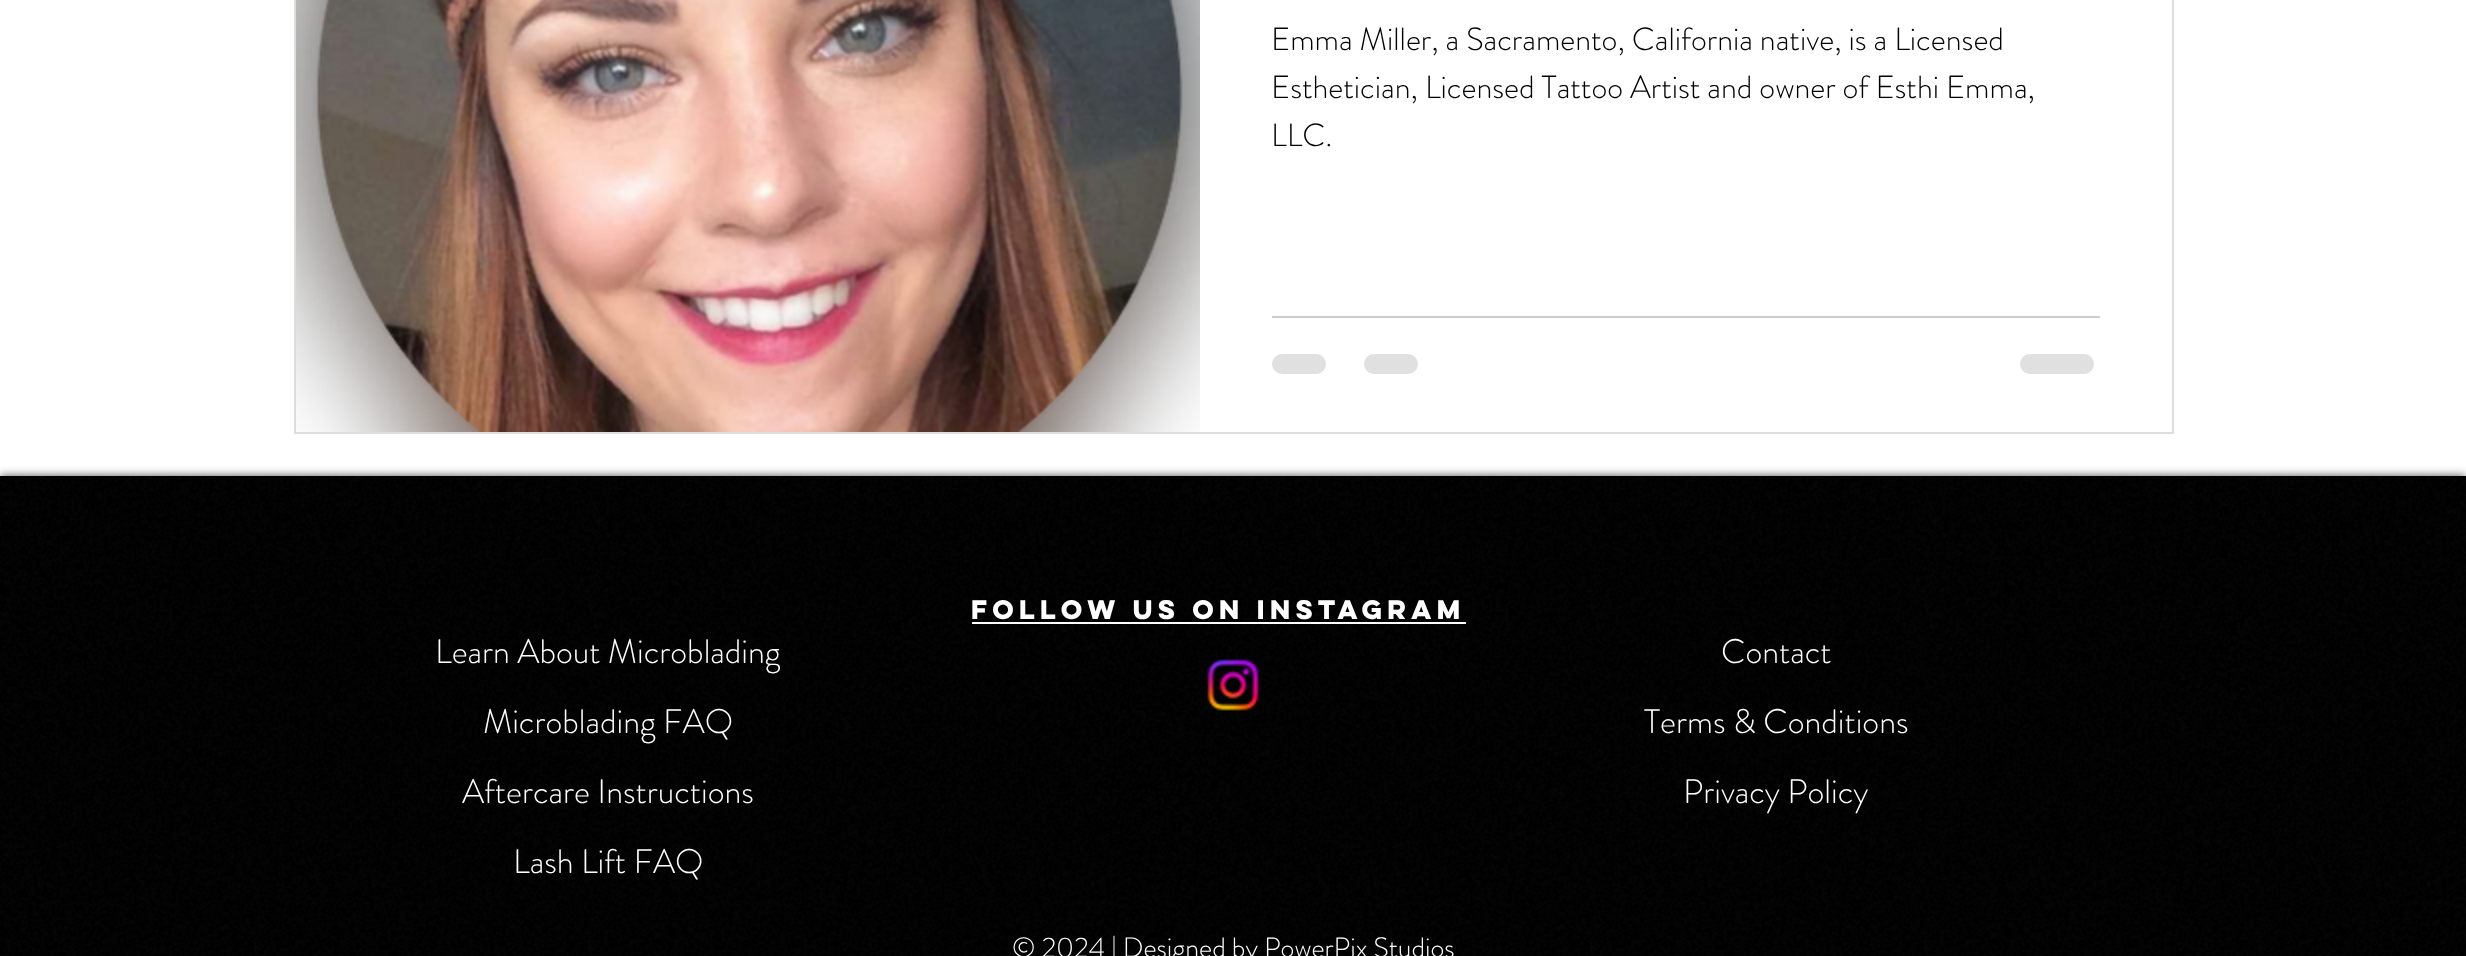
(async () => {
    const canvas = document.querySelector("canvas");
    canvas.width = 2466;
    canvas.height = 956;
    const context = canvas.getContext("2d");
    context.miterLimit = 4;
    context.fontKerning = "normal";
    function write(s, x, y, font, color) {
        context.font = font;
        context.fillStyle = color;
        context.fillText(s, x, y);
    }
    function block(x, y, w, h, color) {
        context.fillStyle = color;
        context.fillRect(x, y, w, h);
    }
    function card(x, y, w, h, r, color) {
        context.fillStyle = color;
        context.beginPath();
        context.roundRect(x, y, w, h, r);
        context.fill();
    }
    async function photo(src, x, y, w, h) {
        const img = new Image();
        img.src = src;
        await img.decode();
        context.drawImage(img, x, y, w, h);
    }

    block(0, 0, 2466, 956, "rgb(255, 255, 255)");
    context.strokeStyle = "rgb(221, 221, 221)";
    context.lineWidth = 2;
    context.strokeRect(295, -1, 1878, 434);
    await photo("media/1.png", 296, 0, 904, 432);
    await photo("media/2.png", 316, 0, 867, 432);
    write("Emma Miller, a Sacramento, California native, is a Licensed", 1271, 50, "300 32px 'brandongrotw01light'", "rgb(0, 0, 0)");
    write("Esthetician, Licensed Tattoo Artist and owner of Esthi Emma,", 1271, 98, "300 32px 'brandongrotw01light'", "rgb(0, 0, 0)");
    write("LLC.", 1271, 146, "300 32px 'brandongrotw01light'", "rgb(0, 0, 0)");
    block(1272, 316, 828, 2, "rgb(204, 204, 204)");
    card(1272, 354, 54, 20, 10, "rgb(224, 224, 224)");
    card(1364, 354, 54, 20, 10, "rgb(224, 224, 224)");
    card(2020, 354, 74, 20, 10, "rgb(224, 224, 224)");
    context.fillStyle = "rgba(0, 0, 0, 0.7)";
    context.filter = "blur(5px)";
    context.beginPath();
    context.rect(0, 476, 2466, 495);
    context.fill();
    context.filter = "none";
    block(0, 476, 2466, 480, "rgb(0, 0, 0)");
    await photo("media/3.png", 0, 476, 2466, 480);
    write("Follow Us On Instagram", 971, 619, "bold 24px 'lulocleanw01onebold'", "rgb(255, 255, 255)");
    block(972, 622, 494, 2, "rgb(255, 255, 255)");
    write("Learn About Microblading", 435, 663, "300 34px 'brandongrotw01light'", "rgb(255, 255, 255)");
    write("Microblading FAQ", 483, 733, "300 34px 'brandongrotw01light'", "rgb(255, 255, 255)");
    write("Aftercare Instructions", 462, 803, "300 34px 'brandongrotw01light'", "rgb(255, 255, 255)");
    write("Lash Lift FAQ", 513, 873, "300 34px 'brandongrotw01light'", "rgb(255, 255, 255)");
    await photo("media/4.png", 1207, 659, 52, 52);
    write("Contact", 1721, 663, "300 34px 'brandongrotw01light'", "rgb(255, 255, 255)");
    write("Terms & Conditions", 1644, 733, "300 34px 'brandongrotw01light'", "rgb(255, 255, 255)");
    write("Privacy Policy", 1683, 803, "300 34px 'brandongrotw01light'", "rgb(255, 255, 255)");
    write("© 2024 | Designed by PowerPix Studios", 1012, 957, "300 28px 'brandongrotw01light'", "rgb(255, 255, 255)");
})();
